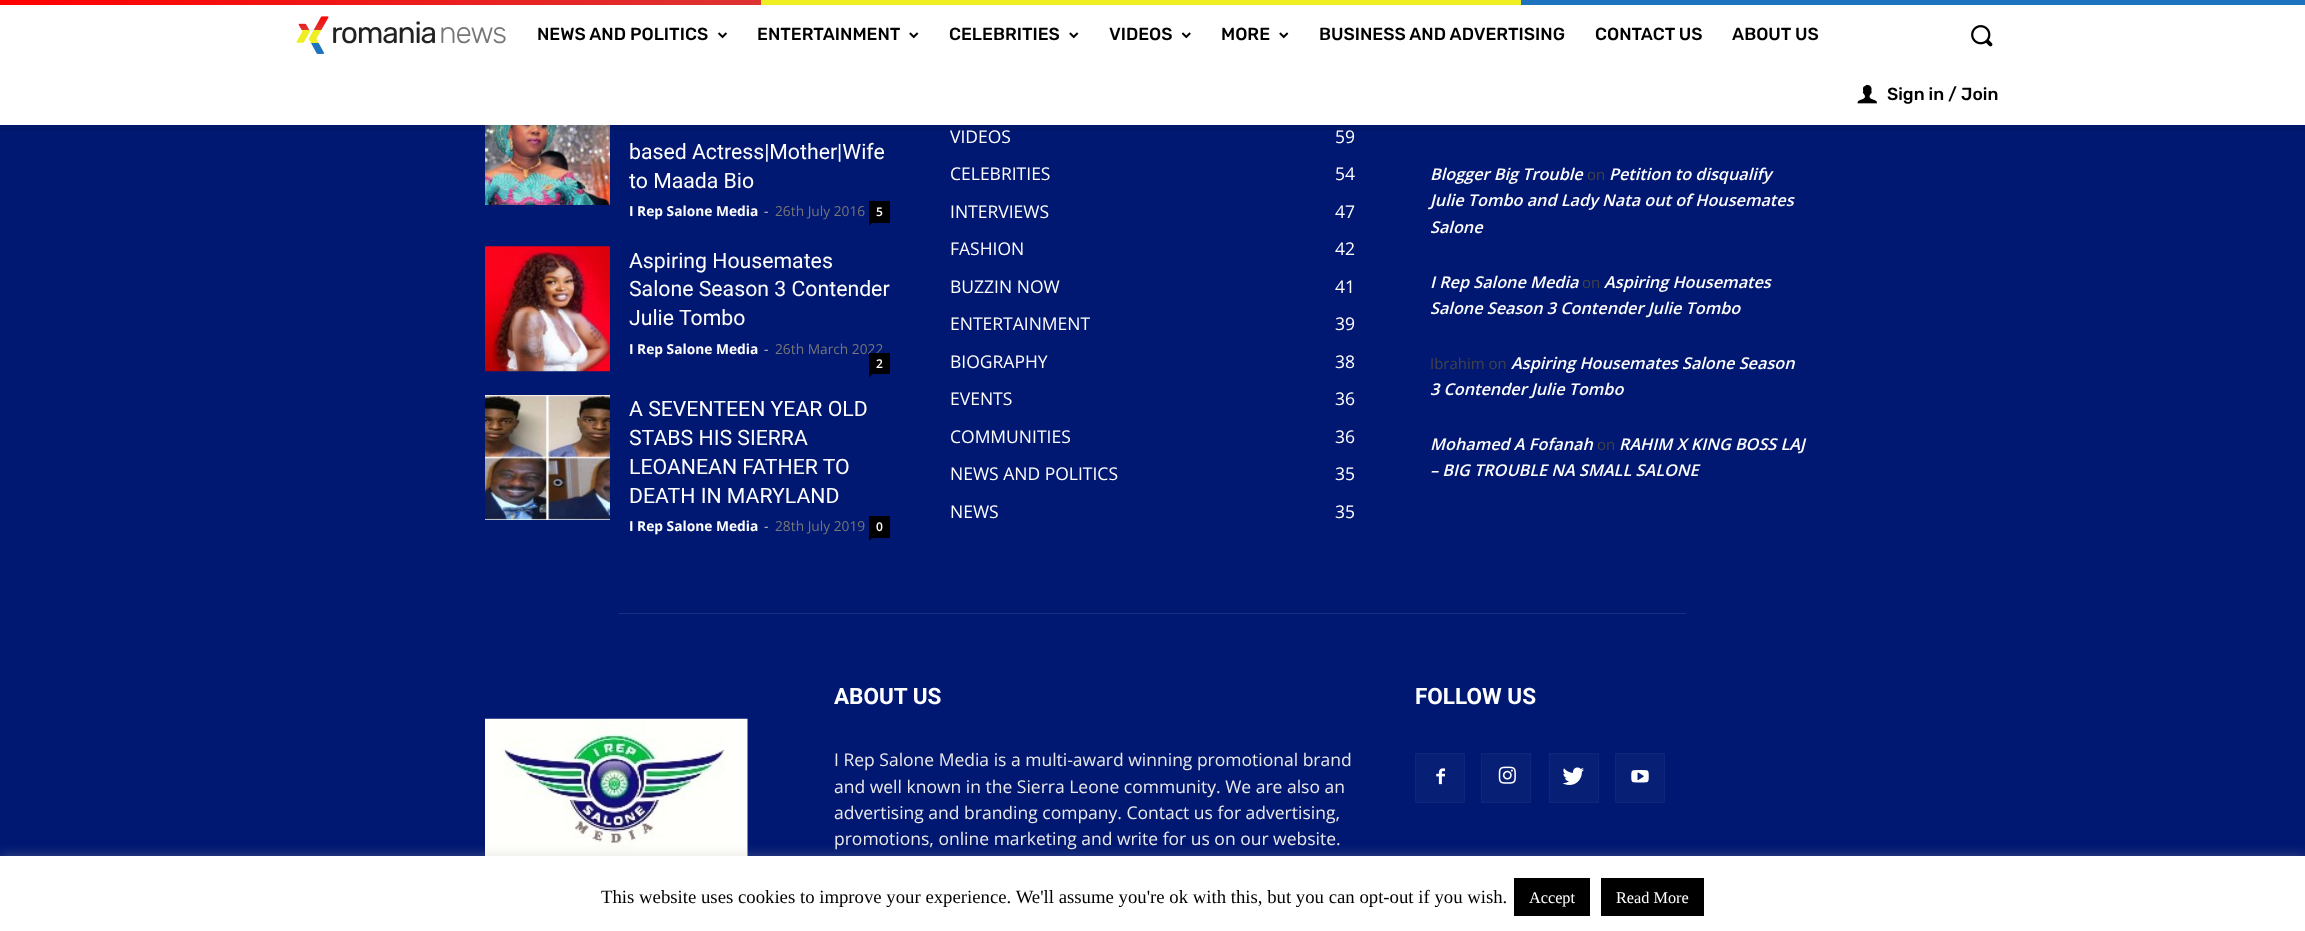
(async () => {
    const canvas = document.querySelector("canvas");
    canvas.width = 2305;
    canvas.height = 931;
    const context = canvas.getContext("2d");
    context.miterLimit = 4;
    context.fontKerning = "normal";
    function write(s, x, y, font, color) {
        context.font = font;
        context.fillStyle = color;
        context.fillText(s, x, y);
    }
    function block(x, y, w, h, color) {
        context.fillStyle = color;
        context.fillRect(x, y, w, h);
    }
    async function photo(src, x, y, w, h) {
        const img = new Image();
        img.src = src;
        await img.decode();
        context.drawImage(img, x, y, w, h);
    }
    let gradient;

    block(0, 0, 2305, 931, "rgb(0, 24, 114)");
    gradient = context.createLinearGradient(2305, 2.5, 0, 2.5);
    gradient.addColorStop(0, "rgb(30, 115, 190)");
    gradient.addColorStop(0.34, "rgb(30, 115, 190)");
    gradient.addColorStop(0.34, "rgb(238, 238, 34)");
    gradient.addColorStop(0.67, "rgb(238, 238, 34)");
    gradient.addColorStop(0.67, "rgb(221, 51, 51)");
    gradient.addColorStop(1, "rgb(255, 0, 0)");
    context.fillStyle = gradient;
    context.fillRect(0, 0, 2305, 5);
    block(0, 5, 2305, 120, "rgb(255, 255, 255)");
    await photo("media/1.png", 296, 16, 33, 38);
    await photo("media/6.png", 1857, 84, 20, 20);
    await photo("media/7.png", 485, 125, 125, 80);
    context.save();
    context.beginPath();
    context.rect(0, 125, 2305, 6);
    context.clip();
    context.fillStyle = "rgba(0, 0, 0, 0.08)";
    context.filter = "blur(1px)";
    context.beginPath();
    context.rect(0, 5, 2305, 125);
    context.fill();
    context.filter = "none";
    context.restore();
    context.letterSpacing = "-1.25px";
    write("romania", 331, 43, "30px Rubik", "rgb(34, 34, 34)");
    write("news", 439, 43, "300 30px Rubik", "rgb(118, 118, 118)");
    context.letterSpacing = "0px";
    write("NEWS AND POLITICS", 537, 40, "500 17.5px Rubik", "rgb(0, 0, 0)");
    await photo("media/2.png", 718, 32, 9, 7);
    write("ENTERTAINMENT", 757, 40, "500 17.5px Rubik", "rgb(0, 0, 0)");
    await photo("media/3.png", 909, 32, 10, 7);
    write("CELEBRITIES", 949, 40, "500 17.5px Rubik", "rgb(0, 0, 0)");
    await photo("media/3.png", 1069, 32, 10, 7);
    write("VIDEOS", 1109, 40, "500 17.5px Rubik", "rgb(0, 0, 0)");
    await photo("media/4.png", 1181, 32, 10, 7);
    write("MORE", 1221, 40, "500 17.5px Rubik", "rgb(0, 0, 0)");
    await photo("media/3.png", 1279, 32, 10, 7);
    write("BUSINESS AND ADVERTISING", 1319, 40, "500 17.5px Rubik", "rgb(0, 0, 0)");
    write("CONTACT US", 1595, 40, "500 17.5px Rubik", "rgb(0, 0, 0)");
    write("ABOUT US", 1732, 40, "500 17.5px Rubik", "rgb(0, 0, 0)");
    await photo("media/5.png", 1971, 25, 22, 22);
    write("Sign in / Join", 1887, 100, "500 17.5px Rubik", "rgb(0, 0, 0)");
    write("based Actress|Mother|Wife", 629, 159, "21.25px Roboto", "rgb(255, 255, 255)");
    write("to Maada Bio", 629, 188, "21.25px Roboto", "rgb(255, 255, 255)");
    write("I Rep Salone Media", 629, 216, "bold 13.75px Open Sans", "rgb(255, 255, 255)");
    write("-", 764, 216, "13.75px Open Sans", "rgb(204, 204, 204)");
    write("26th July 2016", 775, 216, "13.75px Open Sans", "rgb(118, 118, 118)");
    block(869, 201, 21, 22, "rgb(0, 0, 0)");
    write("5", 876, 216, "600 12px Open Sans", "rgb(255, 255, 255)");
    context.fillStyle = "rgb(0, 0, 0)";
    context.beginPath();
    context.moveTo(869, 222.5);
    context.lineTo(872.5, 222.5);
    context.lineTo(869, 226);
    context.closePath();
    context.fill();
    await photo("media/8.png", 485, 246, 125, 126);
    write("Aspiring Housemates", 629, 268, "21.25px Roboto", "rgb(255, 255, 255)");
    write("Salone Season 3 Contender", 629, 296, "21.25px Roboto", "rgb(255, 255, 255)");
    write("Julie Tombo", 629, 325, "21.25px Roboto", "rgb(255, 255, 255)");
    write("I Rep Salone Media", 629, 354, "bold 13.75px Open Sans", "rgb(255, 255, 255)");
    write("-", 764, 354, "13.75px Open Sans", "rgb(204, 204, 204)");
    write("26th March 2022", 775, 354, "13.75px Open Sans", "rgb(118, 118, 118)");
    block(869, 353, 21, 21, "rgb(0, 0, 0)");
    write("2", 876, 368, "600 12px Open Sans", "rgb(255, 255, 255)");
    context.fillStyle = "rgb(0, 0, 0)";
    context.beginPath();
    context.moveTo(869, 374);
    context.lineTo(872.5, 374);
    context.lineTo(869, 377.5);
    context.closePath();
    context.fill();
    await photo("media/9.png", 485, 395, 125, 125);
    write("A SEVENTEEN YEAR OLD", 629, 416, "21.25px Roboto", "rgb(255, 255, 255)");
    write("STABS HIS SIERRA", 629, 445, "21.25px Roboto", "rgb(255, 255, 255)");
    write("LEOANEAN FATHER TO", 629, 474, "21.25px Roboto", "rgb(255, 255, 255)");
    write("DEATH IN MARYLAND", 629, 503, "21.25px Roboto", "rgb(255, 255, 255)");
    write("I Rep Salone Media", 629, 531, "bold 13.75px Open Sans", "rgb(255, 255, 255)");
    write("-", 764, 531, "13.75px Open Sans", "rgb(204, 204, 204)");
    write("28th July 2019", 775, 531, "13.75px Open Sans", "rgb(118, 118, 118)");
    block(869, 516, 21, 22, "rgb(0, 0, 0)");
    write("0", 876, 531, "600 12px Open Sans", "rgb(255, 255, 255)");
    context.fillStyle = "rgb(0, 0, 0)";
    context.beginPath();
    context.moveTo(869, 537.5);
    context.lineTo(872.5, 537.5);
    context.lineTo(869, 541);
    context.closePath();
    context.fill();
    write("VIDEOS", 950, 143, "17.5px Open Sans", "rgb(255, 255, 255)");
    write("59", 1335, 143, "17.5px Open Sans", "rgb(255, 255, 255)");
    write("CELEBRITIES", 950, 180, "17.5px Open Sans", "rgb(255, 255, 255)");
    write("54", 1335, 180, "17.5px Open Sans", "rgb(255, 255, 255)");
    write("INTERVIEWS", 950, 218, "17.5px Open Sans", "rgb(255, 255, 255)");
    write("47", 1335, 218, "17.5px Open Sans", "rgb(255, 255, 255)");
    write("FASHION", 950, 255, "17.5px Open Sans", "rgb(255, 255, 255)");
    write("42", 1335, 255, "17.5px Open Sans", "rgb(255, 255, 255)");
    write("BUZZIN NOW", 950, 293, "17.5px Open Sans", "rgb(255, 255, 255)");
    write("41", 1335, 293, "17.5px Open Sans", "rgb(255, 255, 255)");
    write("ENTERTAINMENT", 950, 330, "17.5px Open Sans", "rgb(255, 255, 255)");
    write("39", 1335, 330, "17.5px Open Sans", "rgb(255, 255, 255)");
    write("BIOGRAPHY", 950, 368, "17.5px Open Sans", "rgb(255, 255, 255)");
    write("38", 1335, 368, "17.5px Open Sans", "rgb(255, 255, 255)");
    write("EVENTS", 950, 405, "17.5px Open Sans", "rgb(255, 255, 255)");
    write("36", 1335, 405, "17.5px Open Sans", "rgb(255, 255, 255)");
    write("COMMUNITIES", 950, 443, "17.5px Open Sans", "rgb(255, 255, 255)");
    write("36", 1335, 443, "17.5px Open Sans", "rgb(255, 255, 255)");
    write("NEWS AND POLITICS", 950, 480, "17.5px Open Sans", "rgb(255, 255, 255)");
    write("35", 1335, 480, "17.5px Open Sans", "rgb(255, 255, 255)");
    write("NEWS", 950, 518, "17.5px Open Sans", "rgb(255, 255, 255)");
    write("35", 1335, 518, "17.5px Open Sans", "rgb(255, 255, 255)");
    write("Blogger Big Trouble", 1430, 180, "italic 600 16.25px Open Sans", "rgb(255, 255, 255)");
    write("on", 1587, 180, "15px Open Sans", "rgb(68, 68, 68)");
    write("Petition to disqualify", 1609, 180, "italic 600 16.25px Open Sans", "rgb(255, 255, 255)");
    write("Julie Tombo and Lady Nata out of Housemates", 1430, 206, "italic 600 16.25px Open Sans", "rgb(255, 255, 255)");
    write("Salone", 1430, 233, "italic 600 16.25px Open Sans", "rgb(255, 255, 255)");
    write("I Rep Salone Media", 1430, 288, "italic 600 16.25px Open Sans", "rgb(255, 255, 255)");
    write("on", 1582, 288, "15px Open Sans", "rgb(68, 68, 68)");
    write("Aspiring Housemates", 1604, 288, "italic 600 16.25px Open Sans", "rgb(255, 255, 255)");
    write("Salone Season 3 Contender Julie Tombo", 1430, 314, "italic 600 16.25px Open Sans", "rgb(255, 255, 255)");
    write("Ibrahim on", 1430, 369, "15px Open Sans", "rgb(68, 68, 68)");
    write("Aspiring Housemates Salone Season", 1511, 369, "italic 600 16.25px Open Sans", "rgb(255, 255, 255)");
    write("3 Contender Julie Tombo", 1430, 395, "italic 600 16.25px Open Sans", "rgb(255, 255, 255)");
    write("Mohamed A Fofanah", 1430, 450, "italic 600 16.25px Open Sans", "rgb(255, 255, 255)");
    write("on", 1597, 450, "15px Open Sans", "rgb(68, 68, 68)");
    write("RAHIM X KING BOSS LAJ", 1619, 450, "italic 600 16.25px Open Sans", "rgb(255, 255, 255)");
    write("– BIG TROUBLE NA SMALL SALONE", 1430, 476, "italic 600 16.25px Open Sans", "rgb(255, 255, 255)");
    block(619, 613, 1067, 1, "rgb(26, 47, 128)");
    write("ABOUT US", 834, 704, "bold 22.5px Roboto", "rgb(255, 255, 255)");
    write("I Rep Salone Media is a multi-award winning promotional brand", 834, 766, "17.5px Open Sans", "rgb(234, 234, 234)");
    write("and well known in the Sierra Leone community. We are also an", 834, 793, "17.5px Open Sans", "rgb(234, 234, 234)");
    write("advertising and branding company. Contact us for advertising,", 834, 819, "17.5px Open Sans", "rgb(234, 234, 234)");
    write("promotions, online marketing and write for us on our website.", 834, 845, "17.5px Open Sans", "rgb(234, 234, 234)");
    write("FOLLOW US", 1415, 704, "bold 22.5px Roboto", "rgb(255, 255, 255)");
    block(1416, 754, 48, 48, "rgb(8, 31, 118)");
    await photo("media/10.png", 1436, 768, 9, 17);
    context.strokeStyle = "rgb(15, 38, 122)";
    context.strokeRect(1415.5, 753.5, 49, 49);
    block(1482, 754, 48, 48, "rgb(8, 31, 118)");
    await photo("media/11.png", 1498, 766, 18, 18);
    context.strokeRect(1481.5, 753.5, 49, 49);
    block(1550, 754, 48, 48, "rgb(8, 31, 118)");
    await photo("media/12.png", 1562, 767, 22, 18);
    context.strokeRect(1549.5, 753.5, 49, 49);
    block(1616, 754, 48, 48, "rgb(8, 31, 118)");
    await photo("media/13.png", 1631, 770, 18, 13);
    context.strokeRect(1615.5, 753.5, 49, 49);
    await photo("media/14.png", 485, 718, 263, 138);
    context.fillStyle = "rgba(172, 171, 171, 0.3)";
    context.filter = "blur(6px)";
    context.beginPath();
    context.rect(0, 855, 2305, 75);
    context.fill();
    context.filter = "none";
    block(0, 856, 2305, 75, "rgb(255, 255, 255)");
    write("This website uses cookies to improve your experience. We'll assume you're ok with this, but you can opt-out if you wish.", 601, 903, "18.75px Liberation Serif", "rgb(0, 0, 0)");
    block(1514, 878, 76, 38, "rgb(0, 0, 0)");
    write("Accept", 1529, 903, "16.25px Liberation Serif", "rgb(255, 255, 255)");
    block(1601, 878, 103, 38, "rgb(0, 0, 0)");
    write("Read More", 1616, 903, "16.25px Liberation Serif", "rgb(255, 255, 255)");
})();
